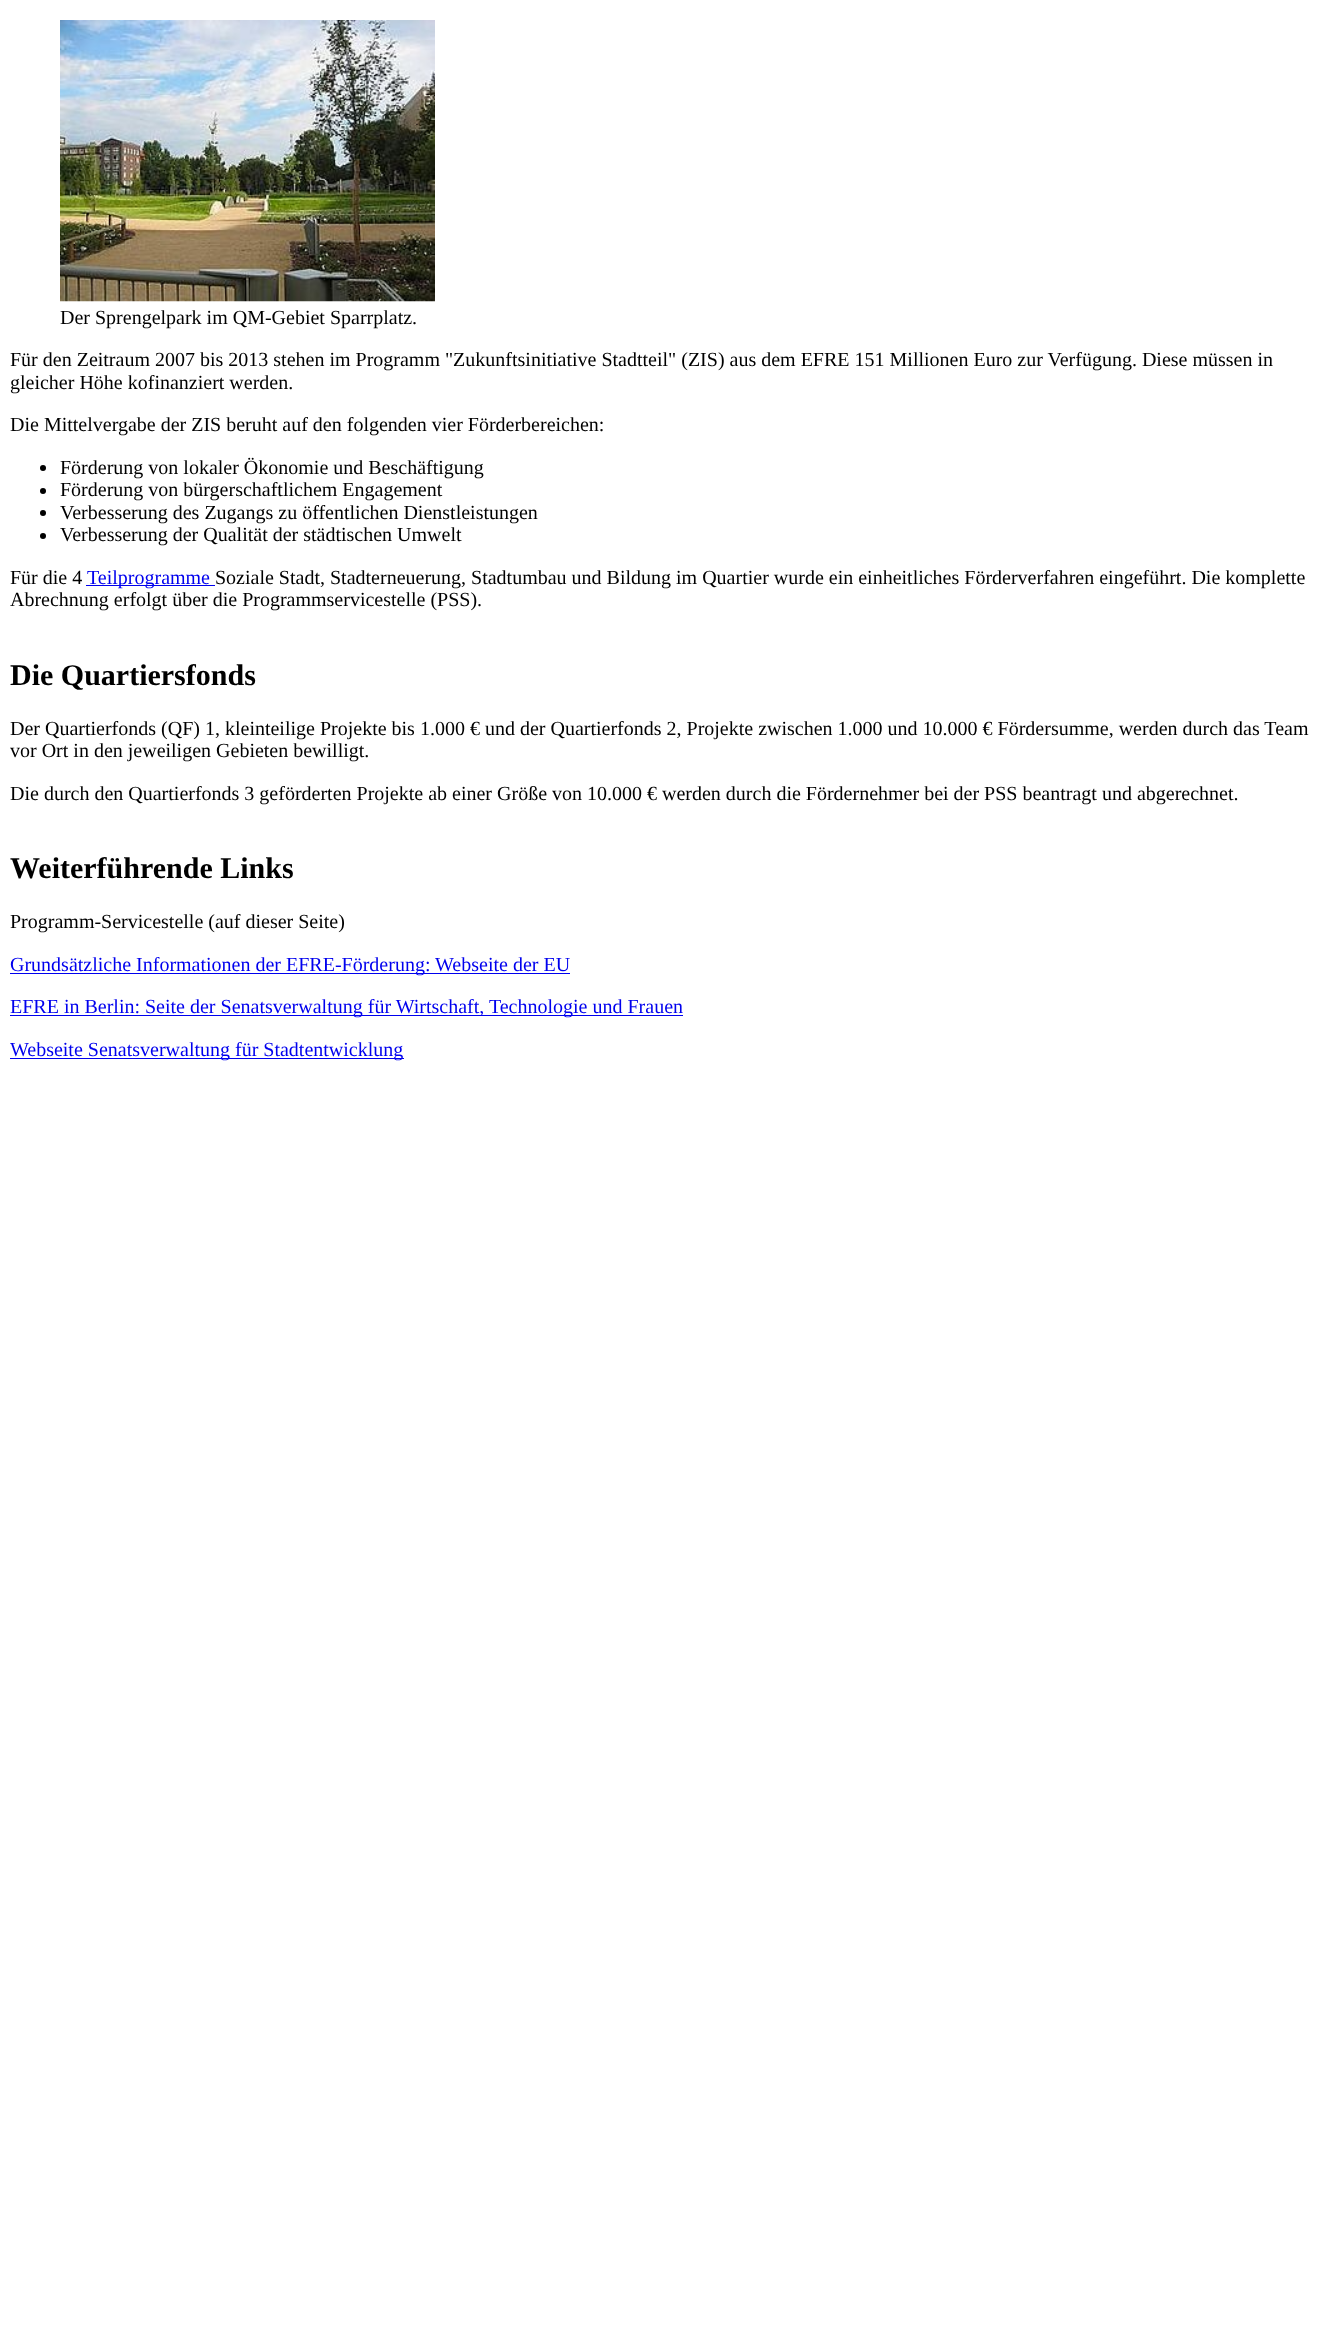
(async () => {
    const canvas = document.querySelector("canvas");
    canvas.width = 1326;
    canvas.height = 2335;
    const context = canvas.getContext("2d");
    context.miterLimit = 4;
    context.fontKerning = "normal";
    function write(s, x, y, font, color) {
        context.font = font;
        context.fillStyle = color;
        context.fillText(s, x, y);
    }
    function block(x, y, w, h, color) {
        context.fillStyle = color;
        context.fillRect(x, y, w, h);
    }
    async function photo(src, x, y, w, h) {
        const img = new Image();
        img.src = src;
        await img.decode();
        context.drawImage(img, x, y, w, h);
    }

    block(0, 0, 1326, 2335, "rgb(255, 255, 255)");
    await photo("media/1.png", 60, 20, 375, 282);
    write("Der Sprengelpark im QM-Gebiet Sparrplatz.", 60, 324, "20px Liberation Serif", "rgb(0, 0, 0)");
    write("Für den Zeitraum 2007 bis 2013 stehen im Programm \"Zukunftsinitiative Stadtteil\" (ZIS) aus dem EFRE 151 Millionen Euro zur Verfügung. Diese müssen in", 10, 366, "20px Liberation Serif", "rgb(0, 0, 0)");
    write("gleicher Höhe kofinanziert werden.", 10, 389, "20px Liberation Serif", "rgb(0, 0, 0)");
    write("Die Mittelvergabe der ZIS beruht auf den folgenden vier Förderbereichen:", 10, 431, "20px Liberation Serif", "rgb(0, 0, 0)");
    context.beginPath();
    context.arc(43, 468, 3, 0, Math.PI * 2);
    context.fill();
    write("Förderung von lokaler Ökonomie und Beschäftigung", 60, 474, "20px Liberation Serif", "rgb(0, 0, 0)");
    context.beginPath();
    context.arc(43, 491, 3, 0, Math.PI * 2);
    context.fill();
    write("Förderung von bürgerschaftlichem Engagement", 60, 496, "20px Liberation Serif", "rgb(0, 0, 0)");
    context.beginPath();
    context.arc(43, 513, 3, 0, Math.PI * 2);
    context.fill();
    write("Verbesserung des Zugangs zu öffentlichen Dienstleistungen", 60, 519, "20px Liberation Serif", "rgb(0, 0, 0)");
    context.beginPath();
    context.arc(43, 536, 3, 0, Math.PI * 2);
    context.fill();
    write("Verbesserung der Qualität der städtischen Umwelt", 60, 541, "20px Liberation Serif", "rgb(0, 0, 0)");
    write("Für die 4", 10, 584, "20px Liberation Serif", "rgb(0, 0, 0)");
    block(86, 585, 129, 1, "rgb(0, 0, 238)");
    write("Teilprogramme", 87, 584, "20px Liberation Serif", "rgb(0, 0, 238)");
    write("Soziale Stadt, Stadterneuerung, Stadtumbau und Bildung im Quartier wurde ein einheitliches Förderverfahren eingeführt. Die komplette", 215, 584, "20px Liberation Serif", "rgb(0, 0, 0)");
    write("Abrechnung erfolgt über die Programmservicestelle (PSS).", 10, 606, "20px Liberation Serif", "rgb(0, 0, 0)");
    write("Die Quartiersfonds", 10, 685, "bold 30px Liberation Serif", "rgb(0, 0, 0)");
    write("Der Quartierfonds (QF) 1, kleinteilige Projekte bis 1.000 € und der Quartierfonds 2, Projekte zwischen 1.000 und 10.000 € Fördersumme, werden durch das Team", 10, 735, "20px Liberation Serif", "rgb(0, 0, 0)");
    write("vor Ort in den jeweiligen Gebieten bewilligt.", 10, 757, "20px Liberation Serif", "rgb(0, 0, 0)");
    write("Die durch den Quartierfonds 3 geförderten Projekte ab einer Größe von 10.000 € werden durch die Fördernehmer bei der PSS beantragt und abgerechnet.", 10, 800, "20px Liberation Serif", "rgb(0, 0, 0)");
    write("Weiterführende Links", 10, 878, "bold 30px Liberation Serif", "rgb(0, 0, 0)");
    write("Programm-Servicestelle (auf dieser Seite)", 10, 928, "20px Liberation Serif", "rgb(0, 0, 0)");
    block(10, 973, 560, 1, "rgb(0, 0, 238)");
    write("Grundsätzliche Informationen der EFRE-Förderung: Webseite der EU", 10, 971, "20px Liberation Serif", "rgb(0, 0, 238)");
    block(10, 1015, 673, 1, "rgb(0, 0, 238)");
    write("EFRE in Berlin: Seite der Senatsverwaltung für Wirtschaft, Technologie und Frauen", 10, 1013, "20px Liberation Serif", "rgb(0, 0, 238)");
    block(10, 1058, 394, 1, "rgb(0, 0, 238)");
    write("Webseite Senatsverwaltung für Stadtentwicklung", 10, 1056, "20px Liberation Serif", "rgb(0, 0, 238)");
})();
